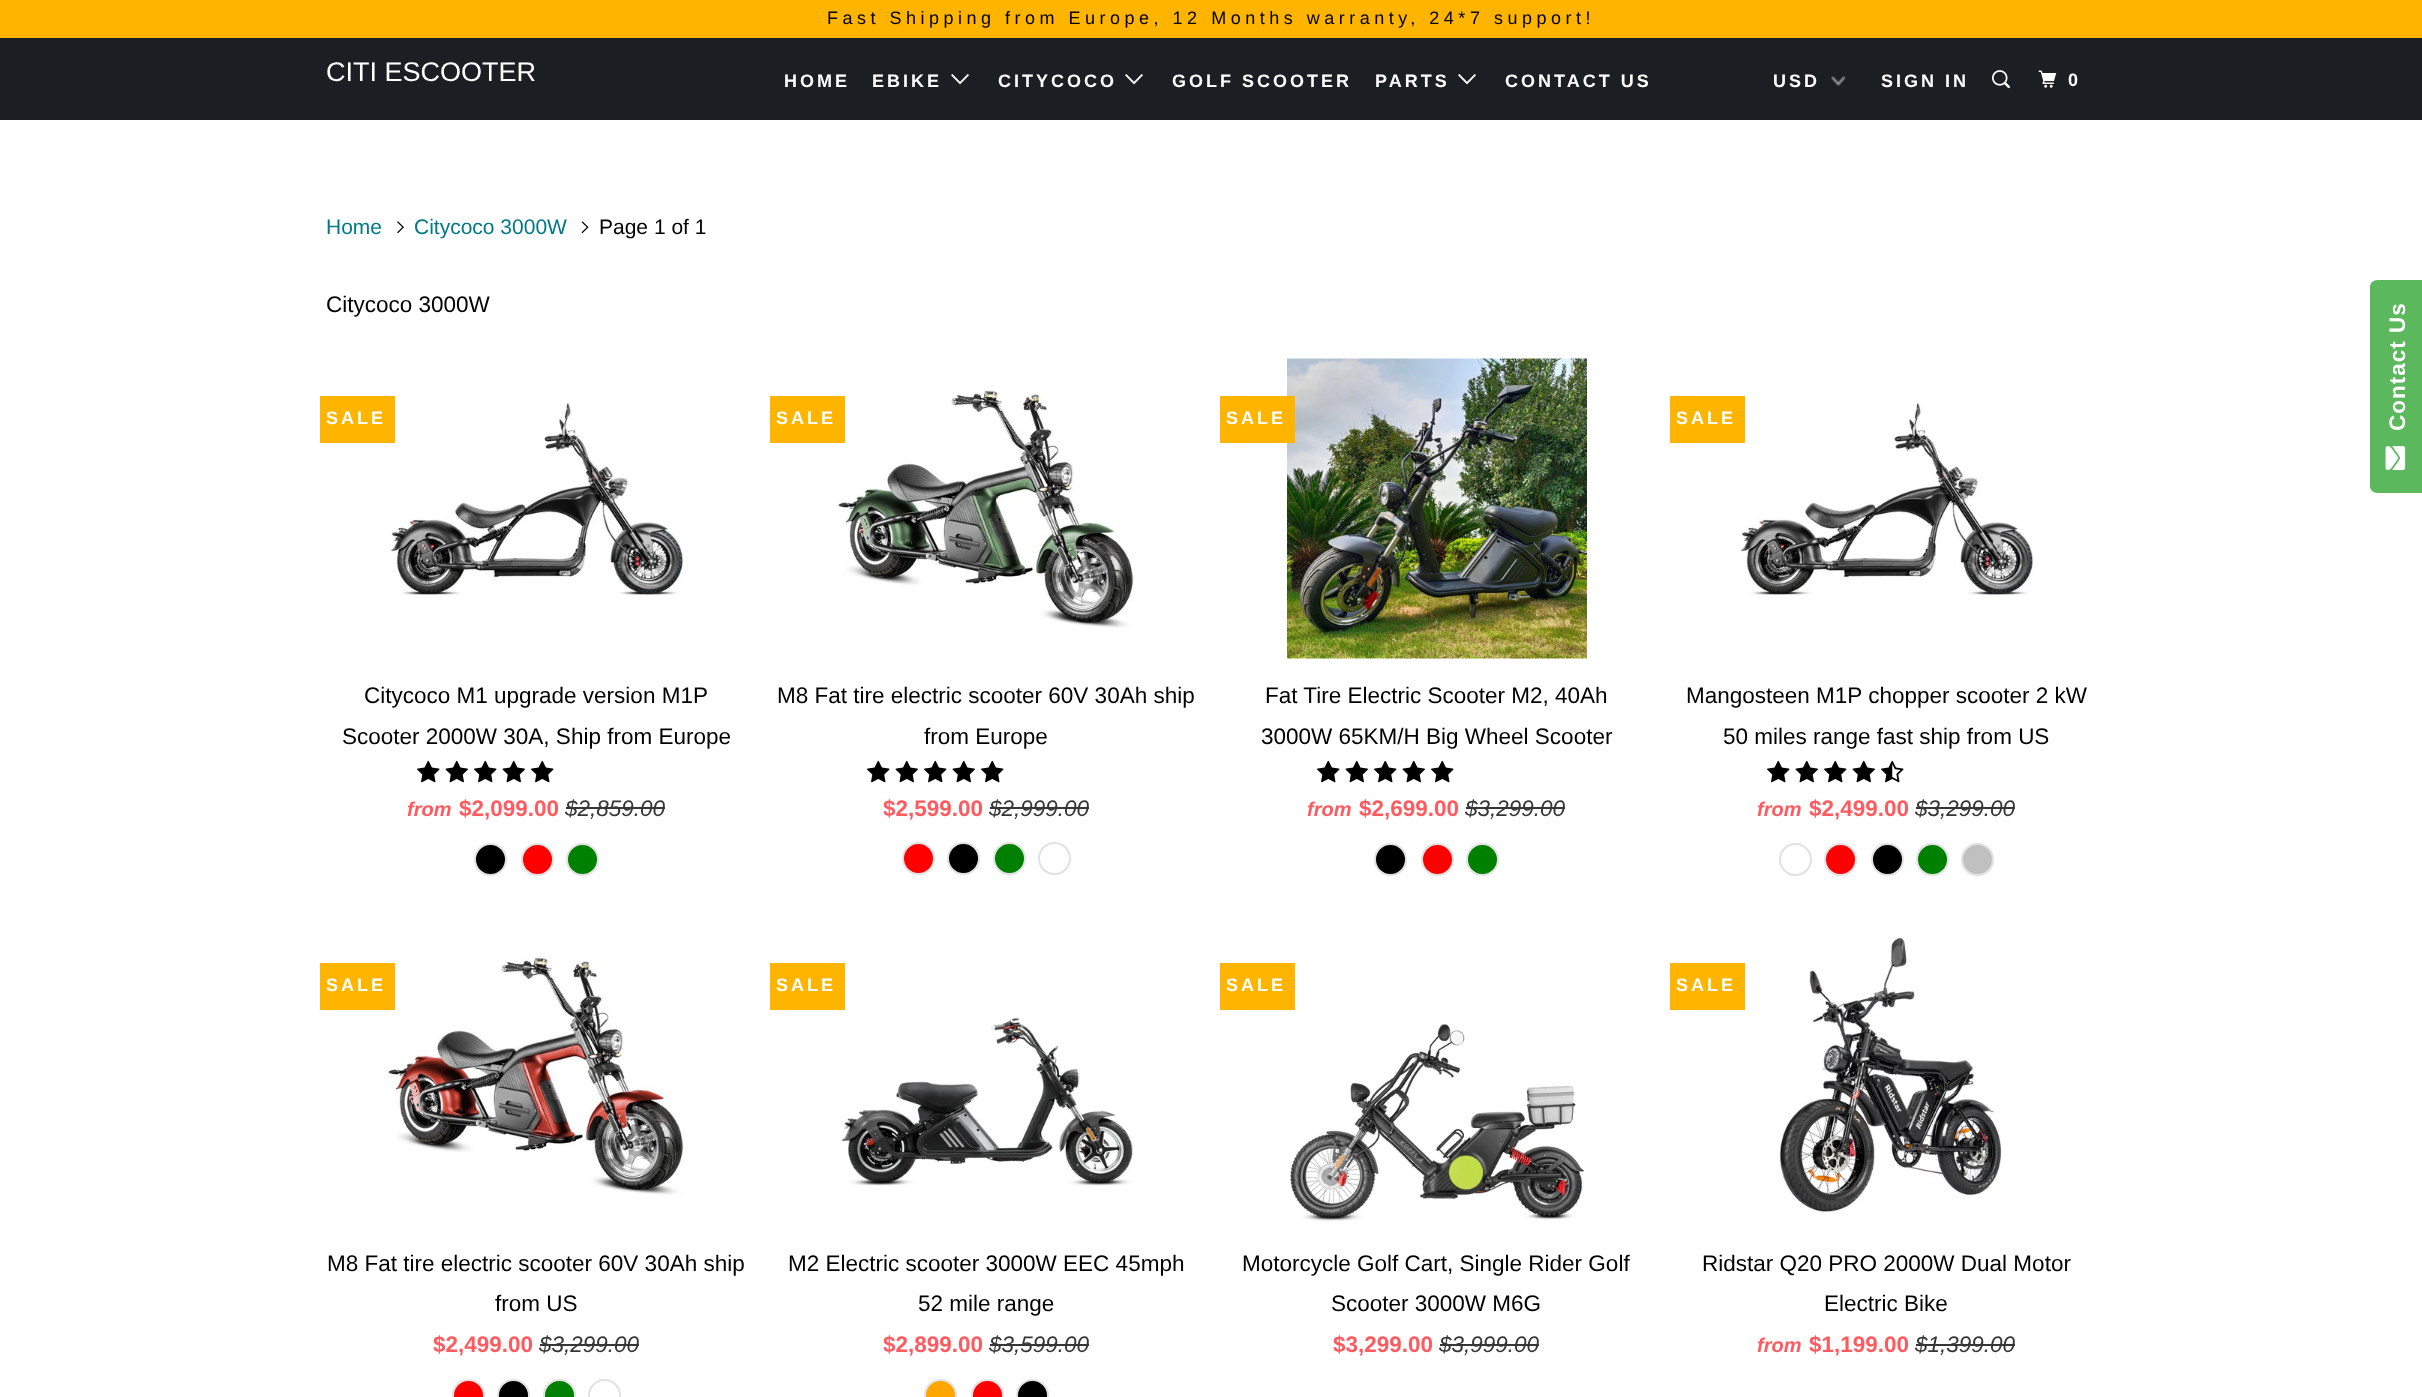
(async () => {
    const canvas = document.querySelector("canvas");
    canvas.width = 2422;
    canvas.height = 1397;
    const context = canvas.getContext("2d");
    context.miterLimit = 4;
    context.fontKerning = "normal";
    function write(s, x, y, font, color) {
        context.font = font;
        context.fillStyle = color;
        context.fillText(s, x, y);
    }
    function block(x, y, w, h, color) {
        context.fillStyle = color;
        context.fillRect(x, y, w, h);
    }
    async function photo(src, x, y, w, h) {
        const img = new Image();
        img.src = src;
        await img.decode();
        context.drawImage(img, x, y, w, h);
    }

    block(0, 0, 2422, 1397, "rgb(255, 255, 255)");
    block(0, 0, 2422, 38, "rgb(255, 180, 0)");
    context.letterSpacing = "4.5px";
    write("Fast Shipping from Europe, 12 Months warranty, 24*7 support!", 827, 24, "18px Liberation Sans", "rgb(0, 0, 0)");
    block(0, 38, 2422, 82, "rgb(27, 31, 35)");
    context.letterSpacing = "0px";
    write("CITI ESCOOTER", 326, 81, "27px Liberation Sans", "rgb(255, 255, 255)");
    context.letterSpacing = "3px";
    write("HOME", 784, 87, "bold 18px Liberation Sans", "rgb(255, 255, 255)");
    write("EBIKE", 872, 87, "bold 18px Liberation Sans", "rgb(255, 255, 255)");
    await photo("media/1.png", 951, 74, 18, 11);
    write("CITYCOCO", 998, 87, "bold 18px Liberation Sans", "rgb(255, 255, 255)");
    await photo("media/1.png", 1125, 74, 18, 11);
    write("GOLF SCOOTER", 1172, 87, "bold 18px Liberation Sans", "rgb(255, 255, 255)");
    write("PARTS", 1375, 87, "bold 18px Liberation Sans", "rgb(255, 255, 255)");
    await photo("media/1.png", 1458, 74, 18, 11);
    write("CONTACT US", 1505, 87, "bold 18px Liberation Sans", "rgb(255, 255, 255)");
    await photo("media/2.png", 1831, 76, 15, 10);
    write("USD", 1773, 87, "bold 18px Liberation Sans", "rgb(255, 255, 255)");
    write("SIGN IN", 1881, 87, "bold 18px Liberation Sans", "rgb(255, 255, 255)");
    await photo("media/3.png", 1992, 70, 18, 19);
    await photo("media/4.png", 2038, 70, 19, 18);
    write("0", 2068, 86, "bold 18px Liberation Sans", "rgb(255, 255, 255)");
    context.letterSpacing = "0px";
    write("Home", 326, 234, "21px Liberation Sans", "rgb(0, 122, 135)");
    await photo("media/5.png", 397, 221, 7, 13);
    write("Citycoco 3000W", 414, 234, "21px Liberation Sans", "rgb(0, 122, 135)");
    await photo("media/6.png", 581, 221, 8, 13);
    write("Page 1 of 1", 599, 234, "21px Liberation Sans", "rgb(0, 0, 0)");
    write("Citycoco 3000W", 326, 312, "22.5px Liberation Sans", "rgb(0, 0, 0)");
    await photo("media/7.png", 390, 403, 294, 193);
    block(320, 396, 75, 47, "rgb(255, 180, 0)");
    context.letterSpacing = "3px";
    write("SALE", 326, 424, "bold 18px Liberation Sans", "rgb(255, 255, 255)");
    context.letterSpacing = "0px";
    write("Citycoco M1 upgrade version M1P", 364, 703, "22.5px Liberation Sans", "rgb(0, 0, 0)");
    write("Scooter 2000W 30A, Ship from Europe", 342, 744, "22.5px Liberation Sans", "rgb(0, 0, 0)");
    await photo("media/8.png", 417, 760, 23, 23);
    await photo("media/9.png", 445, 760, 23, 23);
    await photo("media/8.png", 474, 760, 23, 23);
    await photo("media/9.png", 502, 760, 23, 23);
    await photo("media/8.png", 531, 760, 23, 23);
    write("from", 407, 816, "italic bold 20px Liberation Sans", "rgb(255, 90, 95)");
    write("$2,099.00", 459, 816, "bold 22.5px Liberation Sans", "rgb(255, 90, 95)");
    write("$2,859.00", 565, 816, "italic 22.5px Liberation Sans", "rgb(54, 54, 54)");
    block(566, 807, 99, 2, "rgb(54, 54, 54)");
    context.fillStyle = "rgb(0, 0, 0)";
    context.beginPath();
    context.arc(490.5, 859.5, 15.5, 0, Math.PI * 2);
    context.fill();
    context.strokeStyle = "rgb(226, 226, 226)";
    context.lineWidth = 2;
    context.stroke();
    context.fillStyle = "rgb(255, 0, 0)";
    context.beginPath();
    context.arc(537.5, 859.5, 15.5, 0, Math.PI * 2);
    context.fill();
    context.stroke();
    context.fillStyle = "rgb(0, 128, 0)";
    context.beginPath();
    context.arc(582.5, 859.5, 15.5, 0, Math.PI * 2);
    context.fill();
    context.stroke();
    await photo("media/10.png", 837, 389, 297, 239);
    block(770, 396, 75, 47, "rgb(255, 180, 0)");
    context.letterSpacing = "3px";
    write("SALE", 776, 424, "bold 18px Liberation Sans", "rgb(255, 255, 255)");
    context.letterSpacing = "0px";
    write("M8 Fat tire electric scooter 60V 30Ah ship", 777, 703, "22.5px Liberation Sans", "rgb(0, 0, 0)");
    write("from Europe", 924, 744, "22.5px Liberation Sans", "rgb(0, 0, 0)");
    await photo("media/8.png", 867, 760, 23, 23);
    await photo("media/9.png", 895, 760, 23, 23);
    await photo("media/8.png", 924, 760, 23, 23);
    await photo("media/9.png", 952, 760, 23, 23);
    await photo("media/8.png", 981, 760, 23, 23);
    write("$2,599.00", 883, 816, "bold 22.5px Liberation Sans", "rgb(255, 90, 95)");
    write("$2,999.00", 989, 816, "italic 22.5px Liberation Sans", "rgb(54, 54, 54)");
    block(990, 807, 99, 2, "rgb(54, 54, 54)");
    context.fillStyle = "rgb(255, 0, 0)";
    context.beginPath();
    context.arc(918.5, 858.5, 15.5, 0, Math.PI * 2);
    context.fill();
    context.stroke();
    context.fillStyle = "rgb(0, 0, 0)";
    context.beginPath();
    context.arc(963.5, 858.5, 15.5, 0, Math.PI * 2);
    context.fill();
    context.stroke();
    context.fillStyle = "rgb(0, 128, 0)";
    context.beginPath();
    context.arc(1009.5, 858.5, 15.5, 0, Math.PI * 2);
    context.fill();
    context.stroke();
    context.beginPath();
    context.arc(1054.5, 858.5, 15.5, 0, Math.PI * 2);
    context.stroke();
    await photo("media/11.png", 1287, 358, 300, 301);
    block(1220, 396, 75, 47, "rgb(255, 180, 0)");
    context.letterSpacing = "3px";
    write("SALE", 1226, 424, "bold 18px Liberation Sans", "rgb(255, 255, 255)");
    context.letterSpacing = "0px";
    write("Fat Tire Electric Scooter M2, 40Ah", 1265, 703, "22.5px Liberation Sans", "rgb(0, 0, 0)");
    write("3000W 65KM/H Big Wheel Scooter", 1261, 744, "22.5px Liberation Sans", "rgb(0, 0, 0)");
    await photo("media/8.png", 1317, 760, 23, 23);
    await photo("media/9.png", 1345, 760, 23, 23);
    await photo("media/8.png", 1374, 760, 23, 23);
    await photo("media/9.png", 1402, 760, 23, 23);
    await photo("media/8.png", 1431, 760, 23, 23);
    write("from", 1307, 816, "italic bold 20px Liberation Sans", "rgb(255, 90, 95)");
    write("$2,699.00", 1359, 816, "bold 22.5px Liberation Sans", "rgb(255, 90, 95)");
    write("$3,299.00", 1465, 816, "italic 22.5px Liberation Sans", "rgb(54, 54, 54)");
    block(1466, 807, 99, 2, "rgb(54, 54, 54)");
    context.fillStyle = "rgb(0, 0, 0)";
    context.beginPath();
    context.arc(1390.5, 859.5, 15.5, 0, Math.PI * 2);
    context.fill();
    context.stroke();
    context.fillStyle = "rgb(255, 0, 0)";
    context.beginPath();
    context.arc(1437.5, 859.5, 15.5, 0, Math.PI * 2);
    context.fill();
    context.stroke();
    context.fillStyle = "rgb(0, 128, 0)";
    context.beginPath();
    context.arc(1482.5, 859.5, 15.5, 0, Math.PI * 2);
    context.fill();
    context.stroke();
    await photo("media/12.png", 1740, 403, 294, 193);
    block(1670, 396, 75, 47, "rgb(255, 180, 0)");
    context.letterSpacing = "3px";
    write("SALE", 1676, 424, "bold 18px Liberation Sans", "rgb(255, 255, 255)");
    context.letterSpacing = "0px";
    write("Mangosteen M1P chopper scooter 2 kW", 1686, 703, "22.5px Liberation Sans", "rgb(0, 0, 0)");
    write("50 miles range fast ship from US", 1723, 744, "22.5px Liberation Sans", "rgb(0, 0, 0)");
    await photo("media/8.png", 1767, 760, 23, 23);
    await photo("media/9.png", 1795, 760, 23, 23);
    await photo("media/8.png", 1824, 760, 23, 23);
    await photo("media/9.png", 1852, 760, 23, 23);
    await photo("media/13.png", 1881, 760, 23, 23);
    write("from", 1757, 816, "italic bold 20px Liberation Sans", "rgb(255, 90, 95)");
    write("$2,499.00", 1809, 816, "bold 22.5px Liberation Sans", "rgb(255, 90, 95)");
    write("$3,299.00", 1915, 816, "italic 22.5px Liberation Sans", "rgb(54, 54, 54)");
    block(1916, 807, 99, 2, "rgb(54, 54, 54)");
    context.beginPath();
    context.arc(1795.5, 859.5, 15.5, 0, Math.PI * 2);
    context.stroke();
    context.fillStyle = "rgb(255, 0, 0)";
    context.beginPath();
    context.arc(1840.5, 859.5, 15.5, 0, Math.PI * 2);
    context.fill();
    context.stroke();
    context.fillStyle = "rgb(0, 0, 0)";
    context.beginPath();
    context.arc(1887.5, 859.5, 15.5, 0, Math.PI * 2);
    context.fill();
    context.stroke();
    context.fillStyle = "rgb(0, 128, 0)";
    context.beginPath();
    context.arc(1932.5, 859.5, 15.5, 0, Math.PI * 2);
    context.fill();
    context.stroke();
    context.fillStyle = "rgb(192, 192, 192)";
    context.beginPath();
    context.arc(1977.5, 859.5, 15.5, 0, Math.PI * 2);
    context.fill();
    context.stroke();
    await photo("media/14.png", 387, 956, 297, 239);
    block(320, 963, 75, 47, "rgb(255, 180, 0)");
    context.letterSpacing = "3px";
    write("SALE", 326, 991, "bold 18px Liberation Sans", "rgb(255, 255, 255)");
    context.letterSpacing = "0px";
    write("M8 Fat tire electric scooter 60V 30Ah ship", 327, 1271, "22.5px Liberation Sans", "rgb(0, 0, 0)");
    write("from US", 495, 1311, "22.5px Liberation Sans", "rgb(0, 0, 0)");
    write("$2,499.00", 433, 1352, "bold 22.5px Liberation Sans", "rgb(255, 90, 95)");
    write("$3,299.00", 539, 1352, "italic 22.5px Liberation Sans", "rgb(54, 54, 54)");
    block(540, 1344, 99, 2, "rgb(54, 54, 54)");
    context.fillStyle = "rgb(255, 0, 0)";
    context.beginPath();
    context.arc(468.5, 1395.5, 15.5, 0, Math.PI * 2);
    context.fill();
    context.stroke();
    context.fillStyle = "rgb(0, 0, 0)";
    context.beginPath();
    context.arc(513.5, 1395.5, 15.5, 0, Math.PI * 2);
    context.fill();
    context.stroke();
    context.fillStyle = "rgb(0, 128, 0)";
    context.beginPath();
    context.arc(559.5, 1395.5, 15.5, 0, Math.PI * 2);
    context.fill();
    context.stroke();
    context.beginPath();
    context.arc(604.5, 1395.5, 15.5, 0, Math.PI * 2);
    context.stroke();
    block(770, 963, 75, 47, "rgb(255, 180, 0)");
    context.letterSpacing = "3px";
    write("SALE", 776, 991, "bold 18px Liberation Sans", "rgb(255, 255, 255)");
    await photo("media/15.png", 841, 1017, 292, 169);
    context.letterSpacing = "0px";
    write("M2 Electric scooter 3000W EEC 45mph", 788, 1271, "22.5px Liberation Sans", "rgb(0, 0, 0)");
    write("52 mile range", 918, 1311, "22.5px Liberation Sans", "rgb(0, 0, 0)");
    write("$2,899.00", 883, 1352, "bold 22.5px Liberation Sans", "rgb(255, 90, 95)");
    write("$3,599.00", 989, 1352, "italic 22.5px Liberation Sans", "rgb(54, 54, 54)");
    block(990, 1344, 99, 2, "rgb(54, 54, 54)");
    context.fillStyle = "rgb(255, 165, 0)";
    context.beginPath();
    context.arc(940.5, 1395.5, 15.5, 0, Math.PI * 2);
    context.fill();
    context.stroke();
    context.fillStyle = "rgb(255, 0, 0)";
    context.beginPath();
    context.arc(987.5, 1395.5, 15.5, 0, Math.PI * 2);
    context.fill();
    context.stroke();
    context.fillStyle = "rgb(0, 0, 0)";
    context.beginPath();
    context.arc(1032.5, 1395.5, 15.5, 0, Math.PI * 2);
    context.fill();
    context.stroke();
    block(1220, 963, 75, 47, "rgb(255, 180, 0)");
    context.letterSpacing = "3px";
    write("SALE", 1226, 991, "bold 18px Liberation Sans", "rgb(255, 255, 255)");
    await photo("media/16.png", 1290, 1024, 294, 198);
    context.letterSpacing = "0px";
    write("Motorcycle Golf Cart, Single Rider Golf", 1242, 1271, "22.5px Liberation Sans", "rgb(0, 0, 0)");
    write("Scooter 3000W M6G", 1331, 1311, "22.5px Liberation Sans", "rgb(0, 0, 0)");
    write("$3,299.00", 1333, 1352, "bold 22.5px Liberation Sans", "rgb(255, 90, 95)");
    write("$3,999.00", 1439, 1352, "italic 22.5px Liberation Sans", "rgb(54, 54, 54)");
    block(1440, 1344, 99, 2, "rgb(54, 54, 54)");
    block(1670, 963, 75, 47, "rgb(255, 180, 0)");
    context.letterSpacing = "3px";
    write("SALE", 1676, 991, "bold 18px Liberation Sans", "rgb(255, 255, 255)");
    await photo("media/17.png", 1779, 937, 222, 276);
    context.letterSpacing = "0px";
    write("Ridstar Q20 PRO 2000W Dual Motor", 1702, 1271, "22.5px Liberation Sans", "rgb(0, 0, 0)");
    write("Electric Bike", 1824, 1311, "22.5px Liberation Sans", "rgb(0, 0, 0)");
    write("from", 1757, 1352, "italic bold 20px Liberation Sans", "rgb(255, 90, 95)");
    write("$1,199.00", 1809, 1352, "bold 22.5px Liberation Sans", "rgb(255, 90, 95)");
    write("$1,399.00", 1915, 1352, "italic 22.5px Liberation Sans", "rgb(54, 54, 54)");
    block(1916, 1344, 99, 2, "rgb(54, 54, 54)");
    context.fillStyle = "rgb(92, 184, 92)";
    context.beginPath();
    context.moveTo(2370, 486);
    context.lineTo(2370, 287);
    context.bezierCurveTo(2370, 283, 2373, 280, 2378, 280);
    context.lineTo(2422, 280);
    context.lineTo(2422, 493);
    context.lineTo(2378, 493);
    context.bezierCurveTo(2373, 493, 2370, 490, 2370, 486);
    context.closePath();
    context.fill();
    context.letterSpacing = "1px";
    context.font = "bold 22.5px Liberation Sans";
    context.fillStyle = "rgb(255, 255, 255)";
    context.save();
    context.translate(2405, 431);
    context.rotate(-90 * Math.PI / 180);
    context.fillText("Contact Us", 0, 0);
    context.restore();
    await photo("media/18.png", 2385, 446, 21, 25);
})();
